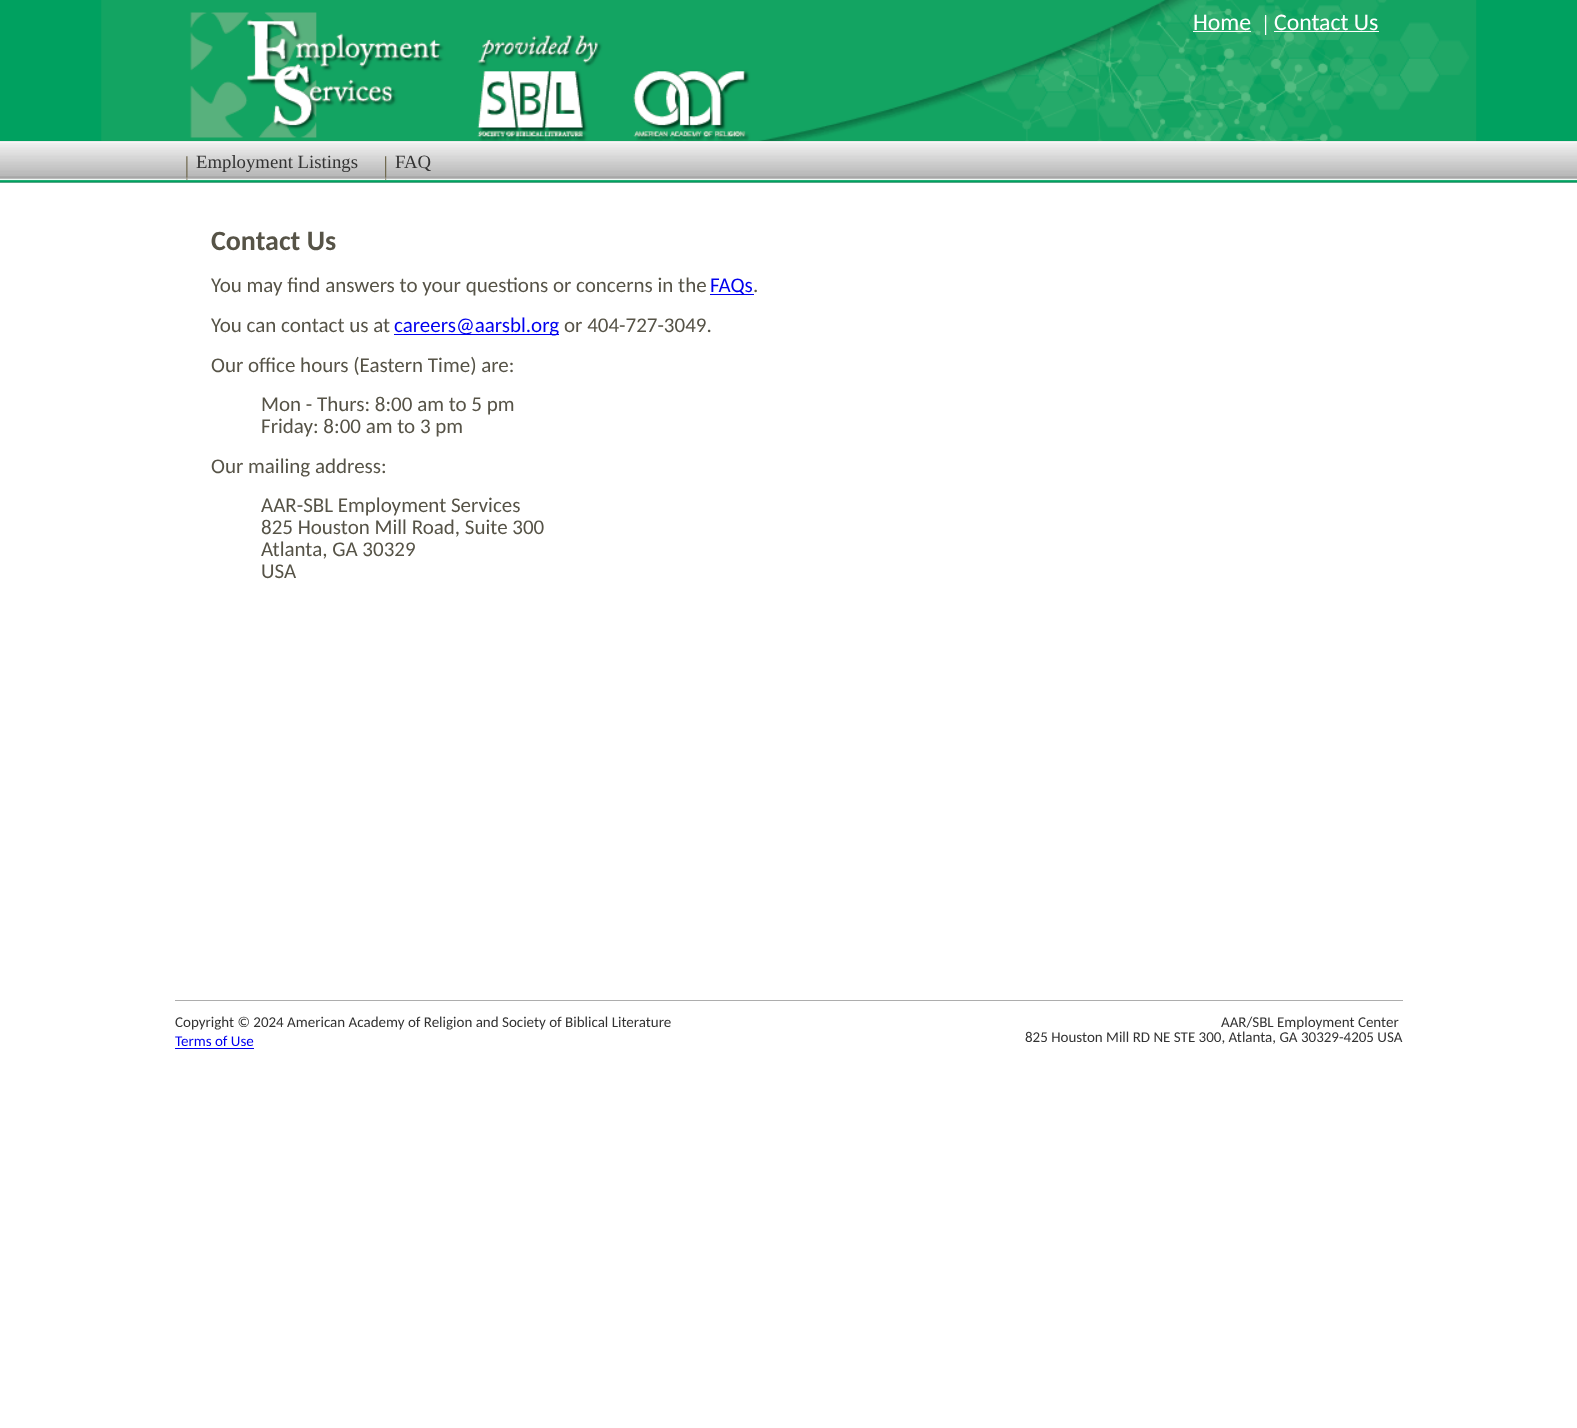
(async () => {
    const canvas = document.querySelector("canvas");
    canvas.width = 1577;
    canvas.height = 1428;
    const context = canvas.getContext("2d");
    context.miterLimit = 4;
    context.fontKerning = "normal";
    function write(s, x, y, font, color) {
        context.font = font;
        context.fillStyle = color;
        context.fillText(s, x, y);
    }
    function block(x, y, w, h, color) {
        context.fillStyle = color;
        context.fillRect(x, y, w, h);
    }
    async function photo(src, x, y, w, h) {
        const img = new Image();
        img.src = src;
        await img.decode();
        context.drawImage(img, x, y, w, h);
    }

    block(0, 0, 1577, 1428, "rgb(255, 255, 255)");
    block(0, 0, 1577, 141, "rgb(0, 161, 96)");
    await photo("media/1.png", 101, 0, 1376, 141);
    write("Home", 1193, 30, "23.75px Carlito", "rgb(255, 255, 255)");
    block(1193, 31, 58, 1, "rgb(255, 255, 255)");
    await photo("media/2.png", 1265, 15, 2, 20);
    write("Contact Us", 1274, 30, "23.75px Carlito", "rgb(255, 255, 255)");
    block(1274, 31, 105, 1, "rgb(255, 255, 255)");
    block(0, 141, 1577, 42, "rgb(173, 173, 173)");
    await photo("media/3.png", 0, 141, 1577, 42);
    await photo("media/4.png", 186, 156, 2, 24);
    write("Employment Listings", 196, 168, "18.75px Liberation Serif", "rgb(51, 51, 51)");
    await photo("media/5.png", 385, 156, 2, 24);
    write("FAQ", 395, 168, "18.75px Liberation Serif", "rgb(51, 51, 51)");
    write("Contact Us", 211, 250, "bold 28px Carlito", "rgb(86, 83, 71)");
    write("You may find answers to your questions or concerns in the", 211, 292, "21px Carlito", "rgb(86, 83, 71)");
    block(710, 294, 44, 1, "rgb(0, 0, 238)");
    write("FAQs", 710, 292, "21px Carlito", "rgb(0, 0, 238)");
    write(".", 753, 292, "21px Carlito", "rgb(86, 83, 71)");
    write("You can contact us at", 211, 332, "21px Carlito", "rgb(86, 83, 71)");
    block(394, 334, 165, 1, "rgb(0, 0, 238)");
    write("careers@aarsbl.org", 394, 332, "21px Carlito", "rgb(0, 0, 238)");
    write("or 404-727-3049.", 564, 332, "21px Carlito", "rgb(86, 83, 71)");
    write("Our office hours (Eastern Time) are:", 211, 372, "21px Carlito", "rgb(86, 83, 71)");
    write("Mon - Thurs: 8:00 am to 5 pm", 261, 411, "21px Carlito", "rgb(86, 83, 71)");
    write("Friday: 8:00 am to 3 pm", 261, 433, "21px Carlito", "rgb(86, 83, 71)");
    write("Our mailing address:", 211, 473, "21px Carlito", "rgb(86, 83, 71)");
    write("AAR-SBL Employment Services", 261, 512, "21px Carlito", "rgb(86, 83, 71)");
    write("825 Houston Mill Road, Suite 300", 261, 534, "21px Carlito", "rgb(86, 83, 71)");
    write("Atlanta, GA 30329", 261, 556, "21px Carlito", "rgb(86, 83, 71)");
    write("USA", 261, 578, "21px Carlito", "rgb(86, 83, 71)");
    block(175, 1000, 1228, 1, "rgb(173, 173, 173)");
    write("Copyright © 2024 American Academy of Religion and Society of Biblical Literature", 175, 1027, "15px Carlito", "rgb(51, 51, 51)");
    write("Terms of Use", 175, 1046, "15px Carlito", "rgb(0, 0, 238)");
    block(175, 1048, 79, 1, "rgb(0, 0, 238)");
    write("AAR/SBL Employment Center", 1221, 1027, "15px Carlito", "rgb(51, 51, 51)");
    write("825 Houston Mill RD NE STE 300, Atlanta, GA 30329-4205 USA", 1025, 1042, "15px Carlito", "rgb(51, 51, 51)");
})();
